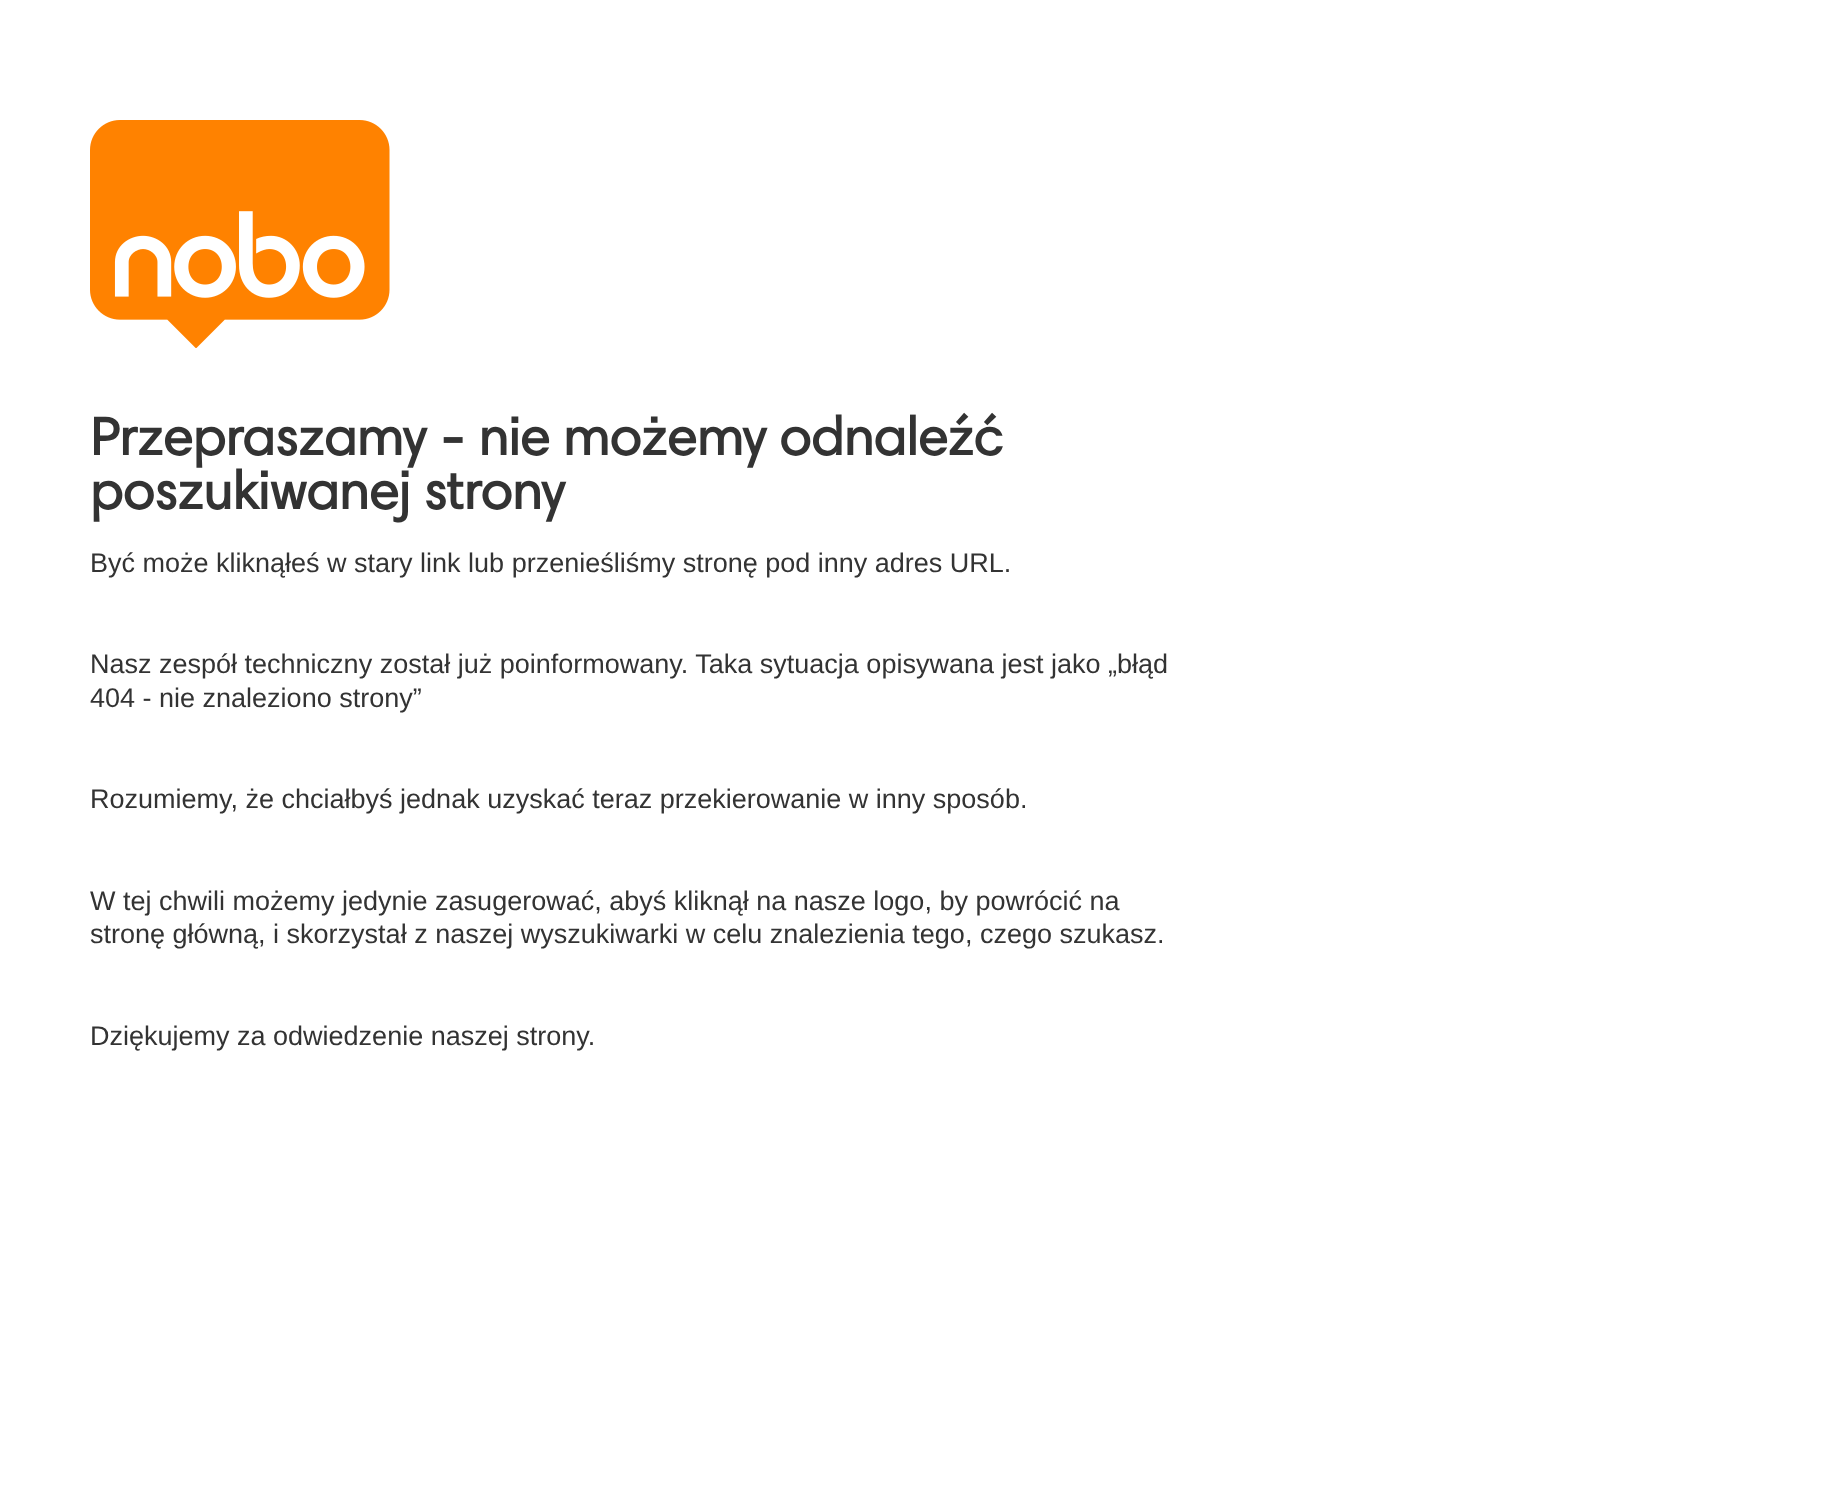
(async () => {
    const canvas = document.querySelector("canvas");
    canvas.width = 1830;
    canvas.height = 1493;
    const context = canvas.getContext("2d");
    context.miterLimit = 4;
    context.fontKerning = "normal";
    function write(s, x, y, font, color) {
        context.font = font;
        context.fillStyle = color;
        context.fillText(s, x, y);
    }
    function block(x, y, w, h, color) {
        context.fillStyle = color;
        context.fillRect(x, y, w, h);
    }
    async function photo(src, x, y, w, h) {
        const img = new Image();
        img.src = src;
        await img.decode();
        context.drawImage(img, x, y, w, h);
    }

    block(0, 0, 1830, 1493, "rgb(255, 255, 255)");
    await photo("media/1.png", 90, 120, 300, 228);
    write("Przepraszamy - nie możemy odnaleźć", 90, 455, "bold 54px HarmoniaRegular", "rgb(51, 51, 51)");
    write("poszukiwanej strony", 90, 509, "bold 54px HarmoniaRegular", "rgb(51, 51, 51)");
    write("Być może kliknąłeś w stary link lub przenieśliśmy stronę pod inny adres URL.", 90, 572, "27px Liberation Sans", "rgb(51, 51, 51)");
    write("Nasz zespół techniczny został już poinformowany. Taka sytuacja opisywana jest jako „błąd", 90, 673, "27px Liberation Sans", "rgb(51, 51, 51)");
    write("404 - nie znaleziono strony”", 90, 707, "27px Liberation Sans", "rgb(51, 51, 51)");
    write("Rozumiemy, że chciałbyś jednak uzyskać teraz przekierowanie w inny sposób.", 90, 808, "27px Liberation Sans", "rgb(51, 51, 51)");
    write("W tej chwili możemy jedynie zasugerować, abyś kliknął na nasze logo, by powrócić na", 90, 910, "27px Liberation Sans", "rgb(51, 51, 51)");
    write("stronę główną, i skorzystał z naszej wyszukiwarki w celu znalezienia tego, czego szukasz.", 90, 943, "27px Liberation Sans", "rgb(51, 51, 51)");
    write("Dziękujemy za odwiedzenie naszej strony.", 90, 1045, "27px Liberation Sans", "rgb(51, 51, 51)");
})();
